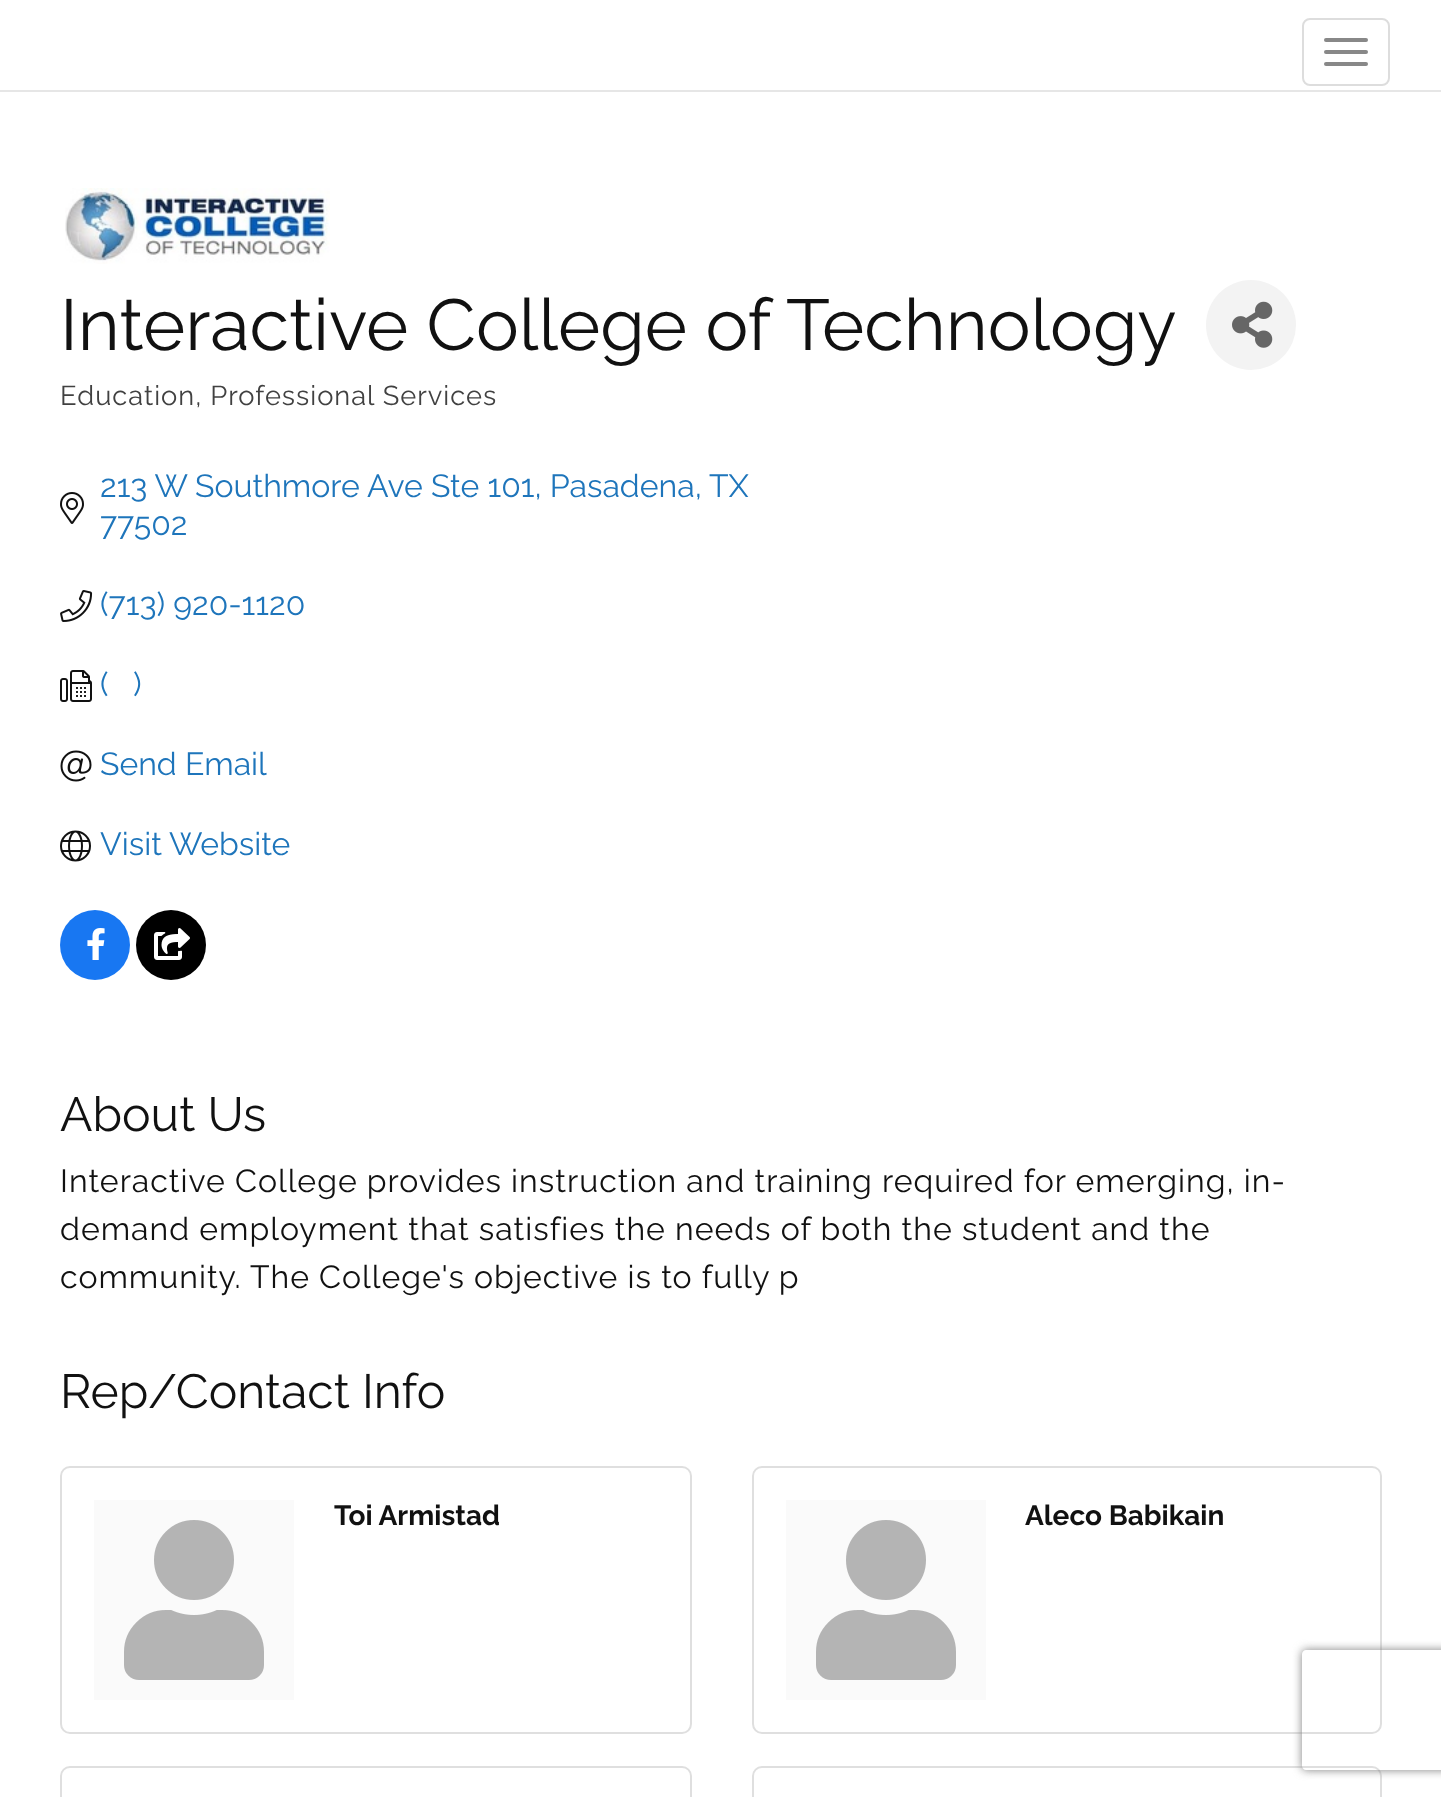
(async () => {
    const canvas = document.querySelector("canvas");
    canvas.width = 1441;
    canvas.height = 1797;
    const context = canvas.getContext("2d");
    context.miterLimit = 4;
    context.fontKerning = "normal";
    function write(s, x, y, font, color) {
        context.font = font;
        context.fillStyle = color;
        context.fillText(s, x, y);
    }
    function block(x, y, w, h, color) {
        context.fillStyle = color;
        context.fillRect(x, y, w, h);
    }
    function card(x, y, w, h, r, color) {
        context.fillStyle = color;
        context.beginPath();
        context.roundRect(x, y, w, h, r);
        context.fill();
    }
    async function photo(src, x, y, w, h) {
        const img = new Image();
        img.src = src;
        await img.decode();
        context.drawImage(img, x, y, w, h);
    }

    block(0, 0, 1441, 1797, "rgb(255, 255, 255)");
    block(0, 90, 1441, 2, "rgb(230, 230, 230)");
    context.beginPath();
    context.roundRect(1303, 19, 86, 66, 7);
    context.strokeStyle = "rgb(221, 221, 221)";
    context.lineWidth = 2;
    context.stroke();
    card(1324, 38, 44, 4, 2, "rgb(136, 136, 136)");
    card(1324, 50, 44, 4, 2, "rgb(136, 136, 136)");
    card(1324, 62, 44, 4, 2, "rgb(136, 136, 136)");
    await photo("media/1.png", 65, 188, 265, 76);
    write("Interactive College of Technology", 60, 350, "72px Raleway", "rgb(17, 17, 17)");
    context.fillStyle = "rgb(243, 243, 243)";
    context.beginPath();
    context.arc(1251, 325, 45, 0, Math.PI * 2);
    context.fill();
    await photo("media/2.png", 1232, 301, 41, 47);
    context.letterSpacing = "1px";
    write("Education, Professional Services", 60, 405, "27.25px Raleway", "rgb(65, 65, 65)");
    context.letterSpacing = "0px";
    write("213 W Southmore Ave Ste 101, Pasadena,", 100, 497, "32px Raleway", "rgb(30, 117, 187)");
    write("TX", 709, 497, "32px Raleway", "rgb(30, 117, 187)");
    await photo("media/3.png", 60, 492, 24, 32);
    write("77502", 100, 535, "32px Raleway", "rgb(30, 117, 187)");
    await photo("media/4.png", 60, 590, 33, 32);
    write("(713) 920-1120", 100, 615, "32px Raleway", "rgb(30, 117, 187)");
    await photo("media/5.png", 60, 670, 32, 32);
    write("(   )", 100, 695, "32px Raleway", "rgb(30, 117, 187)");
    await photo("media/6.png", 60, 750, 32, 32);
    write("Send Email", 100, 775, "32px Raleway", "rgb(30, 117, 187)");
    await photo("media/7.png", 60, 830, 31, 32);
    write("Visit Website", 100, 855, "32px Raleway", "rgb(30, 117, 187)");
    context.fillStyle = "rgb(24, 119, 242)";
    context.beginPath();
    context.arc(95, 945, 35, 0, Math.PI * 2);
    context.fill();
    await photo("media/8.png", 87, 928, 18, 32);
    context.fillStyle = "rgb(0, 0, 0)";
    context.beginPath();
    context.arc(171, 945, 35, 0, Math.PI * 2);
    context.fill();
    await photo("media/9.png", 154, 928, 36, 32);
    write("About Us", 60, 1131, "48px Raleway", "rgb(17, 17, 17)");
    context.letterSpacing = "1px";
    write("Interactive College provides instruction and training required for emerging, in-", 60, 1192, "32px Raleway", "rgb(17, 17, 17)");
    write("demand employment that satisfies the needs of both the student and the", 60, 1240, "32px Raleway", "rgb(17, 17, 17)");
    write("community.", 60, 1288, "32px Raleway", "rgb(17, 17, 17)");
    write("The College's objective is to fully p", 250, 1288, "32px Raleway", "rgb(17, 17, 17)");
    context.letterSpacing = "0px";
    write("Rep/Contact Info", 60, 1408, "48px Raleway", "rgb(17, 17, 17)");
    context.beginPath();
    context.roundRect(61, 1467, 630, 266, 9);
    context.strokeStyle = "rgb(223, 223, 223)";
    context.stroke();
    block(94, 1500, 200, 200, "rgb(250, 250, 250)");
    await photo("media/10.png", 124, 1520, 140, 160);
    write("Toi Armistad", 334, 1525, "bold 28px Raleway", "rgb(17, 17, 17)");
    context.beginPath();
    context.roundRect(753, 1467, 628, 266, 9);
    context.stroke();
    block(786, 1500, 200, 200, "rgb(250, 250, 250)");
    await photo("media/10.png", 816, 1520, 140, 160);
    write("Aleco Babikain", 1025, 1525, "bold 28px Raleway", "rgb(17, 17, 17)");
    context.beginPath();
    context.roundRect(61, 1767, 630, 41, 9);
    context.stroke();
    context.beginPath();
    context.roundRect(753, 1767, 628, 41, 9);
    context.stroke();
    context.save();
    context.beginPath();
    context.moveTo(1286, 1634);
    context.lineTo(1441, 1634);
    context.lineTo(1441, 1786);
    context.lineTo(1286, 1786);
    context.closePath();
    context.moveTo(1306, 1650);
    context.lineTo(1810, 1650);
    context.bezierCurveTo(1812, 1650, 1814, 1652, 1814, 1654);
    context.lineTo(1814, 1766);
    context.bezierCurveTo(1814, 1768, 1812, 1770, 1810, 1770);
    context.lineTo(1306, 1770);
    context.bezierCurveTo(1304, 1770, 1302, 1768, 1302, 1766);
    context.lineTo(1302, 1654);
    context.bezierCurveTo(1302, 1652, 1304, 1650, 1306, 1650);
    context.closePath();
    context.clip("evenodd");
    context.fillStyle = "rgb(128, 128, 128)";
    context.filter = "blur(5px)";
    context.beginPath();
    context.roundRect(1302, 1650, 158, 120, 4);
    context.fill();
    context.filter = "none";
    context.restore();
})();
